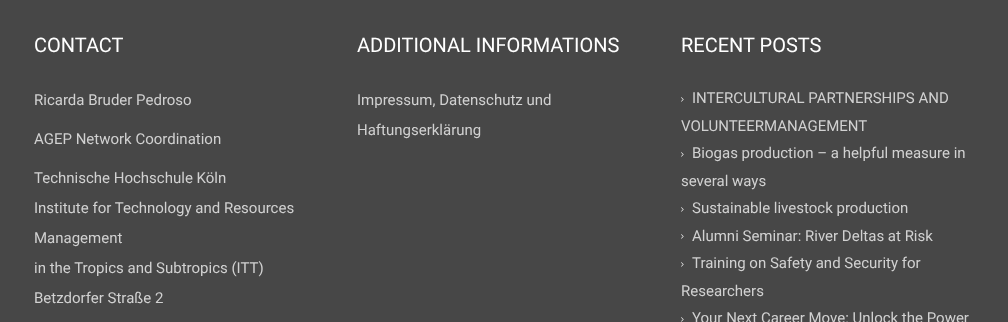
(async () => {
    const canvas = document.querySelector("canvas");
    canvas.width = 1008;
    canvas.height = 322;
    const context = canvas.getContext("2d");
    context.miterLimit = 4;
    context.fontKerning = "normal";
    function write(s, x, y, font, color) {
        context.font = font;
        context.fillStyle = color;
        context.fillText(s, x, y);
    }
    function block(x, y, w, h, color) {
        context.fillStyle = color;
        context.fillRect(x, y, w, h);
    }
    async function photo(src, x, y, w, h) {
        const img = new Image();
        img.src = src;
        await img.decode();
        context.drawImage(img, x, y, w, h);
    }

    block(0, 0, 1008, 322, "rgb(71, 71, 71)");
    write("CONTACT", 34, 52, "20px Roboto", "rgb(255, 255, 255)");
    write("Ricarda Bruder Pedroso", 34, 105, "15px Roboto", "rgb(209, 209, 209)");
    write("AGEP Network Coordination", 34, 144, "15px Roboto", "rgb(209, 209, 209)");
    write("Technische Hochschule Köln", 34, 183, "15px Roboto", "rgb(209, 209, 209)");
    write("Institute for Technology and Resources", 34, 213, "15px Roboto", "rgb(209, 209, 209)");
    write("Management", 34, 243, "15px Roboto", "rgb(209, 209, 209)");
    write("in the Tropics and Subtropics (ITT)", 34, 273, "15px Roboto", "rgb(209, 209, 209)");
    write("Betzdorfer Straße 2", 34, 303, "15px Roboto", "rgb(209, 209, 209)");
    write("ADDITIONAL INFORMATIONS", 357, 52, "20px Roboto", "rgb(255, 255, 255)");
    write("Impressum, Datenschutz und", 357, 105, "15px Roboto", "rgb(209, 209, 209)");
    write("Haftungserklärung", 357, 135, "15px Roboto", "rgb(209, 209, 209)");
    write("RECENT POSTS", 681, 52, "20px Roboto", "rgb(255, 255, 255)");
    await photo("media/1.png", 681, 97, 3, 5);
    write("INTERCULTURAL PARTNERSHIPS AND", 692, 103, "15px Roboto", "rgb(209, 209, 209)");
    write("VOLUNTEERMANAGEMENT", 681, 131, "15px Roboto", "rgb(209, 209, 209)");
    await photo("media/1.png", 681, 152, 3, 5);
    write("Biogas production – a helpful measure in", 692, 158, "15px Roboto", "rgb(209, 209, 209)");
    write("several ways", 681, 186, "15px Roboto", "rgb(209, 209, 209)");
    await photo("media/1.png", 681, 207, 3, 5);
    write("Sustainable livestock production", 692, 213, "15px Roboto", "rgb(209, 209, 209)");
    await photo("media/1.png", 681, 234, 3, 5);
    write("Alumni Seminar: River Deltas at Risk", 692, 241, "15px Roboto", "rgb(209, 209, 209)");
    await photo("media/1.png", 681, 262, 3, 5);
    write("Training on Safety and Security for", 692, 268, "15px Roboto", "rgb(209, 209, 209)");
    write("Researchers", 681, 296, "15px Roboto", "rgb(209, 209, 209)");
    await photo("media/1.png", 681, 317, 3, 5);
    write("Your Next Career Move: Unlock the Power", 692, 323, "15px Roboto", "rgb(209, 209, 209)");
})();
